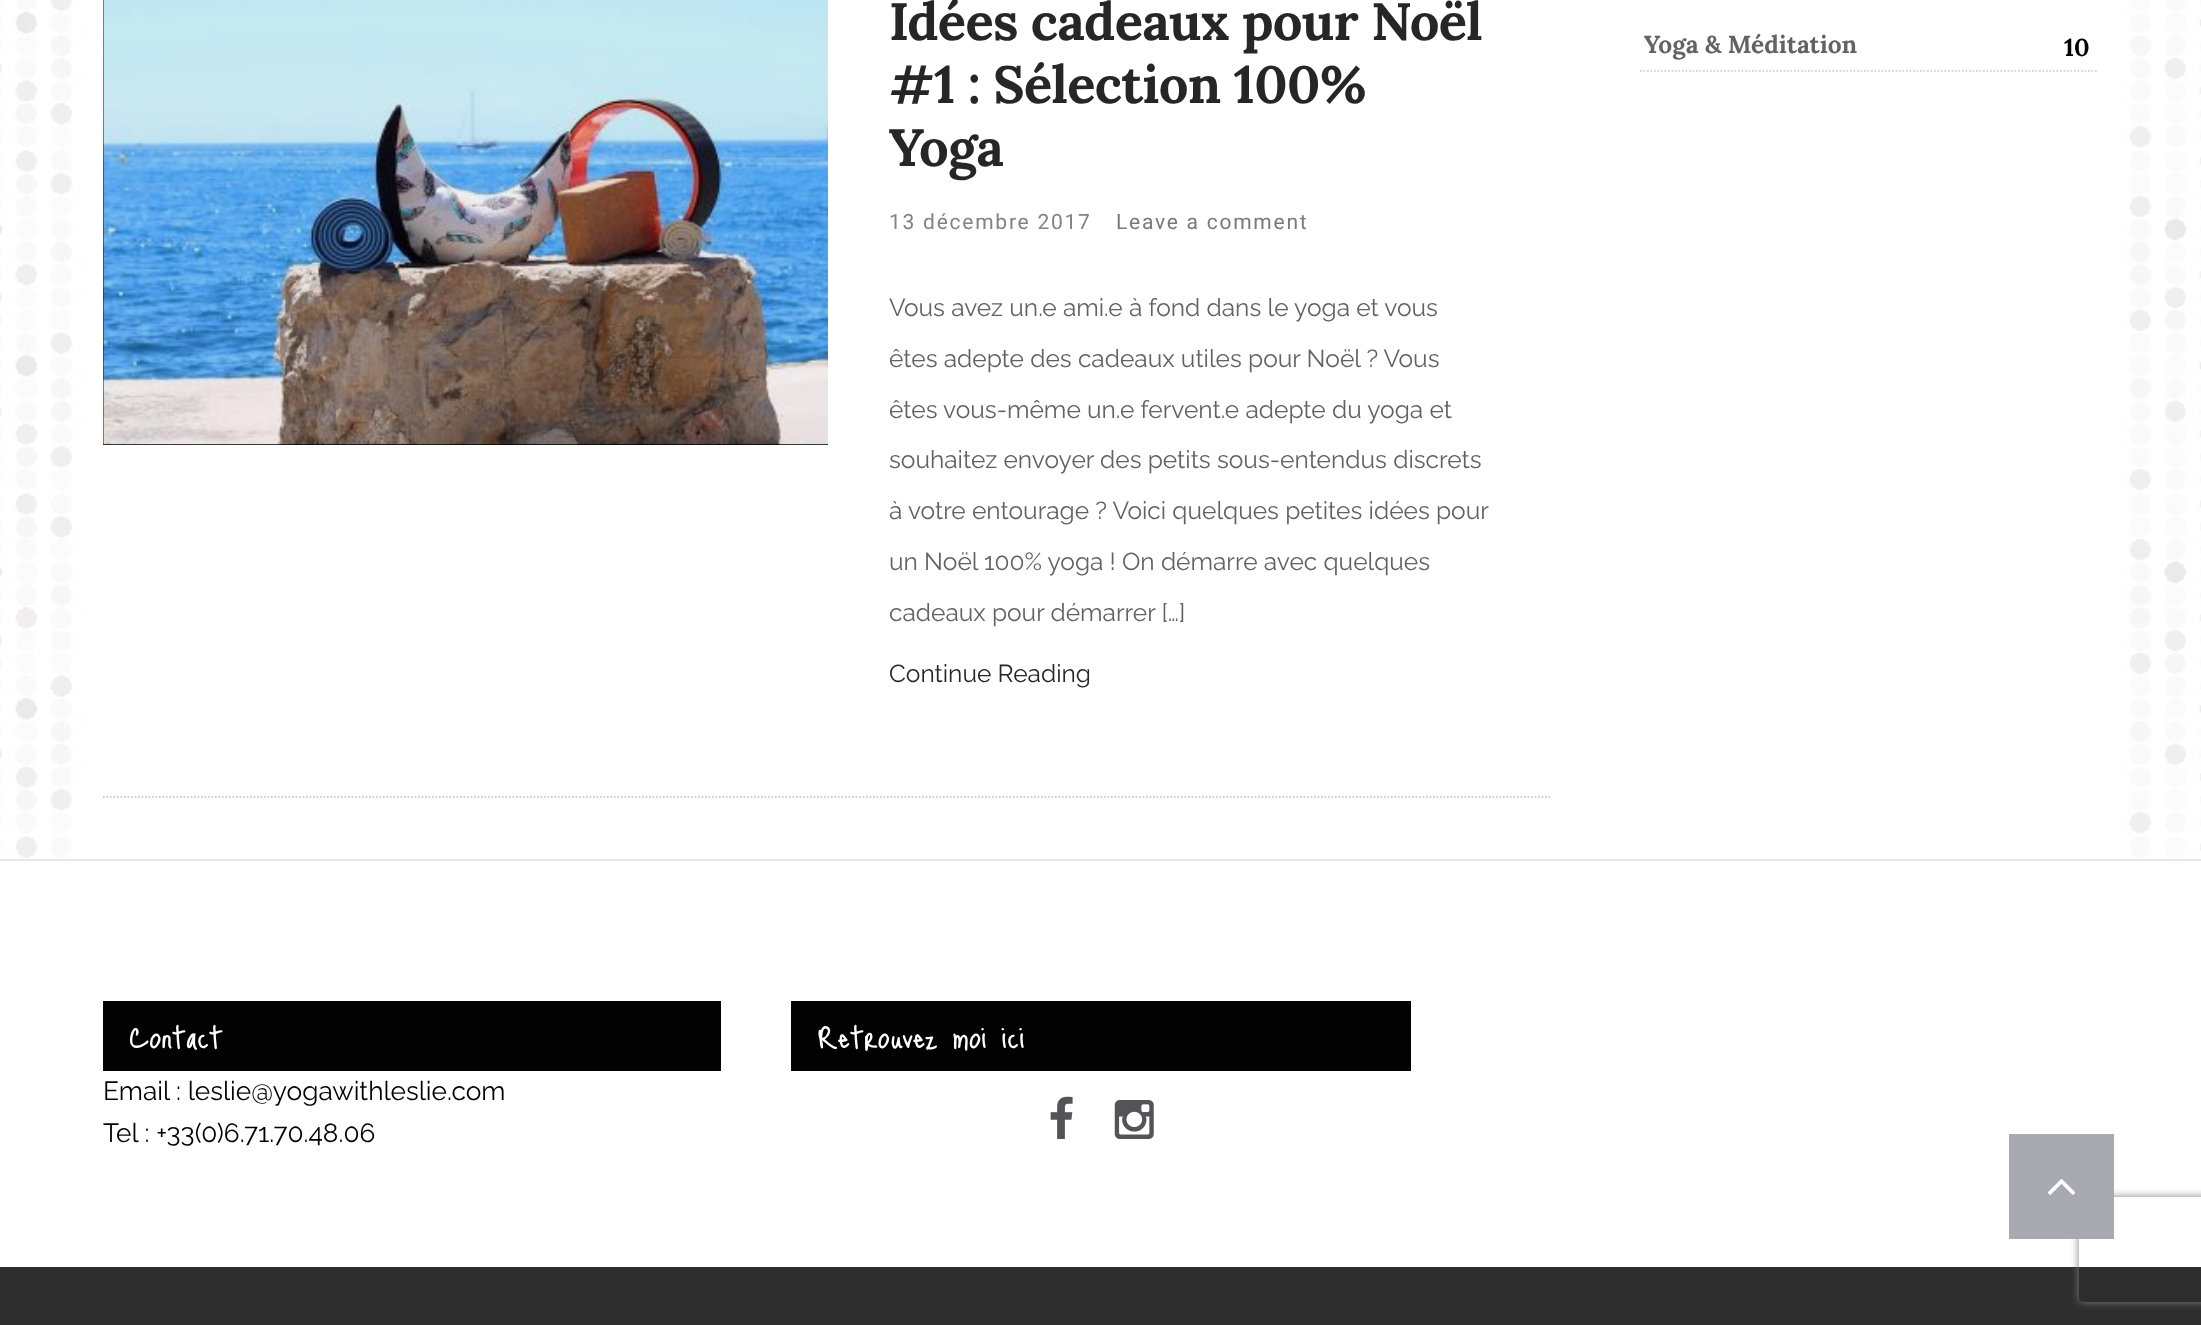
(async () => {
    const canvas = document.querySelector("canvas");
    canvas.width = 2201;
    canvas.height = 1325;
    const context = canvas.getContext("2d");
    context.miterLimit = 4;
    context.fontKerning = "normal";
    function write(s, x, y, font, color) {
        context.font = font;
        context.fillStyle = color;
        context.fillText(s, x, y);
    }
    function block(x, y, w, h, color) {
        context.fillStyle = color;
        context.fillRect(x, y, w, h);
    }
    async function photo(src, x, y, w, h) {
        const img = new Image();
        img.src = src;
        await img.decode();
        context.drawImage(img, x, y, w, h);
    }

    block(0, 0, 2201, 1325, "rgb(255, 255, 255)");
    await photo("media/1.png", 0, 0, 2201, 859);
    block(85, 0, 2032, 859, "rgb(255, 255, 255)");
    context.beginPath();
    context.moveTo(103, 797);
    context.lineTo(1552, 797);
    context.strokeStyle = "rgb(208, 208, 208)";
    context.lineWidth = 1.8;
    context.setLineDash([1.75, 1.75]);
    context.stroke();
    block(103, 0, 725, 445, "rgb(0, 0, 0)");
    await photo("media/2.png", 103, 0, 725, 445);
    context.letterSpacing = "-0.7px";
    write("Idées cadeaux pour Noël", 889, 40, "bold 52.5px Lora", "rgb(38, 38, 39)");
    write("#1 : Sélection 100%", 889, 103, "bold 52.5px Lora", "rgb(38, 38, 39)");
    write("Yoga", 889, 166, "bold 52.5px Lora", "rgb(38, 38, 39)");
    context.letterSpacing = "1.75px";
    write("13 décembre 2017", 889, 229, "21px Roboto", "rgb(130, 130, 130)");
    write("Leave a comment", 1116, 229, "21px Roboto", "rgb(121, 121, 121)");
    context.letterSpacing = "0px";
    write("Vous avez un.e ami.e à fond dans le yoga et vous", 889, 316, "24.5px Raleway", "rgb(97, 97, 105)");
    write("êtes adepte des cadeaux utiles pour Noël ? Vous", 889, 367, "24.5px Raleway", "rgb(97, 97, 105)");
    write("êtes vous-même un.e fervent.e adepte du yoga et", 889, 418, "24.5px Raleway", "rgb(97, 97, 105)");
    write("souhaitez envoyer des petits sous-entendus discrets", 889, 468, "24.5px Raleway", "rgb(97, 97, 105)");
    write("à votre entourage ? Voici quelques petites idées pour", 889, 519, "24.5px Raleway", "rgb(97, 97, 105)");
    write("un Noël 100% yoga ! On démarre avec quelques", 889, 570, "24.5px Raleway", "rgb(97, 97, 105)");
    write("cadeaux pour démarrer […]", 889, 621, "24.5px Raleway", "rgb(97, 97, 105)");
    write("Continue Reading", 889, 682, "24.5px Raleway", "rgb(38, 38, 39)");
    context.beginPath();
    context.moveTo(1640, 71);
    context.lineTo(2098, 71);
    context.strokeStyle = "rgb(216, 216, 216)";
    context.stroke();
    write("Yoga & Méditation", 1644, 53, "bold 24.5px Lora", "rgb(99, 99, 99)");
    write("10", 2064, 56, "bold 24.5px Lora", "rgb(0, 0, 0)");
    block(0, 859, 2201, 2, "rgb(232, 232, 232)");
    block(103, 1001, 618, 70, "rgb(2, 2, 2)");
    write("Contact", 130, 1048, "38.5px Just Me Again Down Here", "rgb(255, 255, 255)");
    write("Email : leslie@yogawithleslie.com", 103, 1100, "26.25px Raleway", "rgb(0, 0, 0)");
    write("Tel : +33(0)6.71.70.48.06", 103, 1142, "26.25px Raleway", "rgb(0, 0, 0)");
    block(791, 1001, 620, 70, "rgb(2, 2, 2)");
    write("Retrouvez moi ici", 818, 1048, "38.5px Just Me Again Down Here", "rgb(255, 255, 255)");
    await photo("media/3.png", 1050, 1096, 23, 43);
    await photo("media/4.png", 1114, 1100, 40, 39);
    block(0, 1267, 2201, 58, "rgb(45, 45, 45)");
    context.save();
    context.beginPath();
    context.moveTo(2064, 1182);
    context.lineTo(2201, 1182);
    context.lineTo(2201, 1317);
    context.lineTo(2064, 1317);
    context.closePath();
    context.moveTo(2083, 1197);
    context.lineTo(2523, 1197);
    context.bezierCurveTo(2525, 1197, 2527, 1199, 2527, 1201);
    context.lineTo(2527, 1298);
    context.bezierCurveTo(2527, 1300, 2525, 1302, 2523, 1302);
    context.lineTo(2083, 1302);
    context.bezierCurveTo(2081, 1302, 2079, 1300, 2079, 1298);
    context.lineTo(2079, 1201);
    context.bezierCurveTo(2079, 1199, 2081, 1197, 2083, 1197);
    context.closePath();
    context.clip("evenodd");
    context.fillStyle = "rgb(128, 128, 128)";
    context.filter = "blur(4.5px)";
    context.beginPath();
    context.roundRect(2079, 1197, 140, 105, 4);
    context.fill();
    context.filter = "none";
    context.restore();
    block(2009, 1134, 105, 105, "rgb(169, 169, 177)");
    await photo("media/5.png", 2047, 1179, 29, 16);
})();
